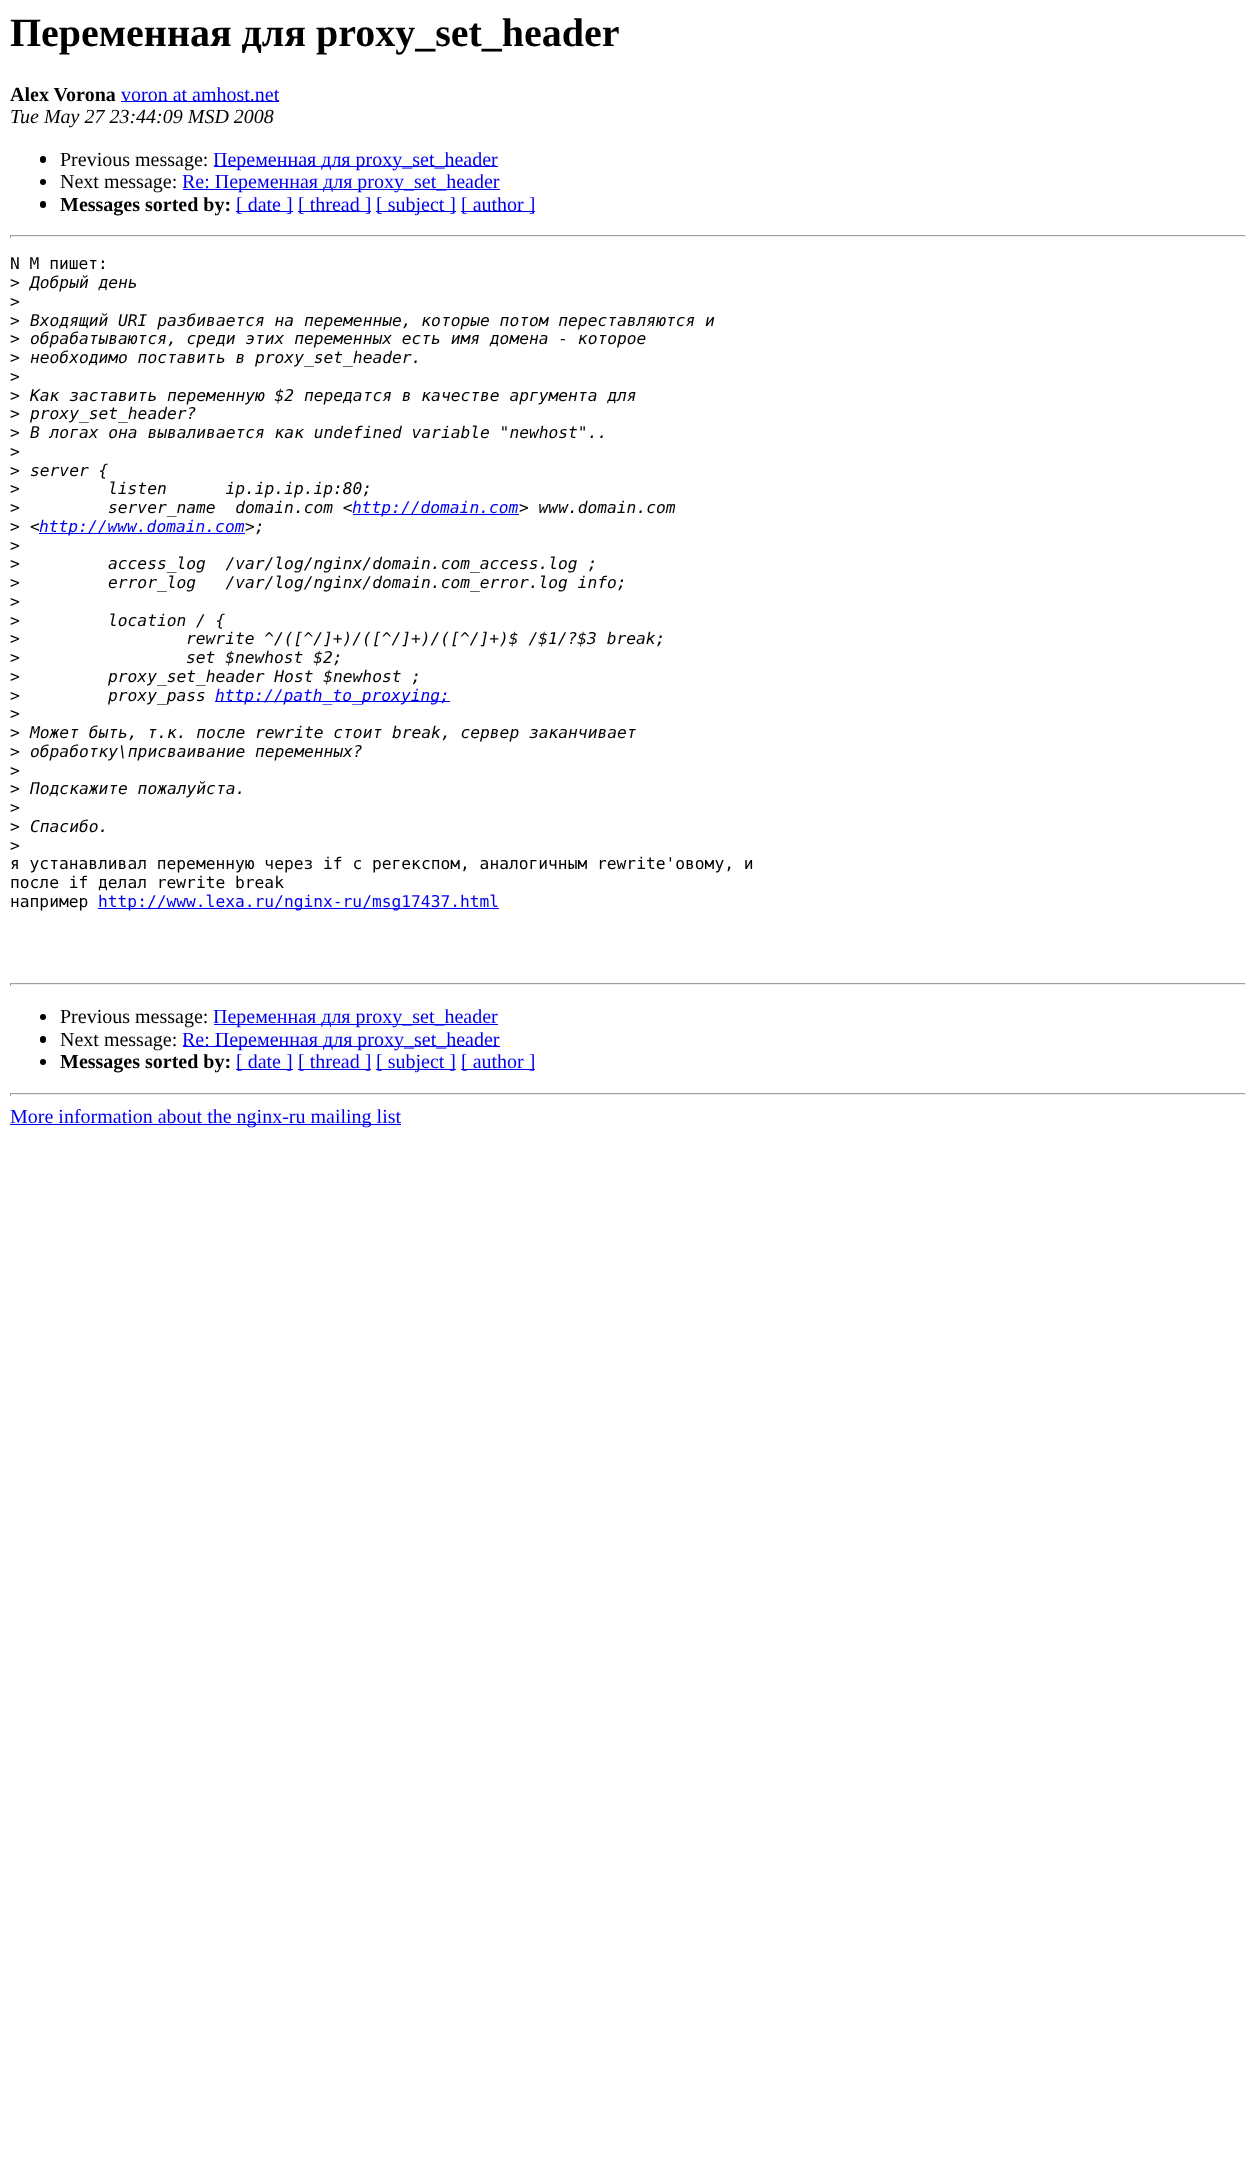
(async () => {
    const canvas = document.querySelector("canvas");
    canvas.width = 1256;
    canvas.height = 2177;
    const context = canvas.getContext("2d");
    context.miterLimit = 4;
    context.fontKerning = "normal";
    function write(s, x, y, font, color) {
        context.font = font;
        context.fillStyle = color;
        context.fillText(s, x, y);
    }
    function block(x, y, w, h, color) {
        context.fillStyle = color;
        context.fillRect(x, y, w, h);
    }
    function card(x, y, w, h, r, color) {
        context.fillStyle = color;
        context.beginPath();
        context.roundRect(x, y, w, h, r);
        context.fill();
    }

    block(0, 0, 1256, 2177, "rgb(255, 255, 255)");
    write("Переменная для proxy_set_header", 10, 46, "bold 40px Liberation Serif", "rgb(0, 0, 0)");
    write("Alex Vorona", 10, 101, "bold 20px Liberation Serif", "rgb(0, 0, 0)");
    block(121, 101, 158, 1, "rgb(0, 0, 238)");
    write("voron at amhost.net", 121, 101, "20px Liberation Serif", "rgb(0, 0, 238)");
    write("Tue May 27 23:44:09 MSD 2008", 10, 123, "italic 20px Liberation Serif", "rgb(0, 0, 0)");
    card(40, 156, 6, 7, 3, "rgb(0, 0, 0)");
    write("Previous message:", 60, 166, "20px Liberation Serif", "rgb(0, 0, 0)");
    block(214, 166, 284, 1, "rgb(0, 0, 238)");
    write("Переменная для proxy_set_header", 213, 166, "20px Liberation Serif", "rgb(0, 0, 238)");
    context.fillStyle = "rgb(0, 0, 0)";
    context.beginPath();
    context.arc(43, 182, 3, 0, Math.PI * 2);
    context.fill();
    write("Next message:", 60, 188, "20px Liberation Serif", "rgb(0, 0, 0)");
    block(183, 189, 317, 1, "rgb(0, 0, 238)");
    write("Re: Переменная для proxy_set_header", 182, 188, "20px Liberation Serif", "rgb(0, 0, 238)");
    card(40, 201, 6, 7, 3, "rgb(0, 0, 0)");
    write("Messages sorted by:", 60, 211, "bold 20px Liberation Serif", "rgb(0, 0, 0)");
    block(236, 211, 57, 1, "rgb(0, 0, 238)");
    write("[ date ]", 236, 211, "20px Liberation Serif", "rgb(0, 0, 238)");
    block(298, 211, 73, 1, "rgb(0, 0, 238)");
    write("[ thread ]", 298, 211, "20px Liberation Serif", "rgb(0, 0, 238)");
    block(376, 211, 80, 1, "rgb(0, 0, 238)");
    write("[ subject ]", 376, 211, "20px Liberation Serif", "rgb(0, 0, 238)");
    block(461, 211, 74, 1, "rgb(0, 0, 238)");
    write("[ author ]", 461, 211, "20px Liberation Serif", "rgb(0, 0, 238)");
    block(10, 235, 1236, 1, "rgb(159, 159, 159)");
    block(1245, 235, 1, 3, "rgb(238, 238, 238)");
    block(10, 236, 1236, 1, "rgb(238, 238, 238)");
    block(10, 235, 1, 3, "rgb(159, 159, 159)");
    write("N M пишет:", 10, 269, "16.25px DejaVu Sans Mono", "rgb(0, 0, 0)");
    write(">", 10, 288, "16.25px DejaVu Sans Mono", "rgb(0, 0, 0)");
    write("Добрый день", 30, 288, "italic 16.25px DejaVu Sans Mono", "rgb(0, 0, 0)");
    write(">", 10, 307, "16.25px DejaVu Sans Mono", "rgb(0, 0, 0)");
    write(">", 10, 326, "16.25px DejaVu Sans Mono", "rgb(0, 0, 0)");
    write("Входящий URI разбивается на переменные, которые потом переставляются и", 30, 326, "italic 16.25px DejaVu Sans Mono", "rgb(0, 0, 0)");
    write(">", 10, 344, "16.25px DejaVu Sans Mono", "rgb(0, 0, 0)");
    write("обрабатываются, среди этих переменных есть имя домена - которое", 30, 344, "italic 16.25px DejaVu Sans Mono", "rgb(0, 0, 0)");
    write(">", 10, 363, "16.25px DejaVu Sans Mono", "rgb(0, 0, 0)");
    write("необходимо поставить в proxy_set_header.", 30, 363, "italic 16.25px DejaVu Sans Mono", "rgb(0, 0, 0)");
    write(">", 10, 382, "16.25px DejaVu Sans Mono", "rgb(0, 0, 0)");
    write(">", 10, 401, "16.25px DejaVu Sans Mono", "rgb(0, 0, 0)");
    write("Как заставить переменную $2 передатся в качестве аргумента для", 30, 401, "italic 16.25px DejaVu Sans Mono", "rgb(0, 0, 0)");
    write(">", 10, 419, "16.25px DejaVu Sans Mono", "rgb(0, 0, 0)");
    write("proxy_set_header?", 30, 419, "italic 16.25px DejaVu Sans Mono", "rgb(0, 0, 0)");
    write(">", 10, 438, "16.25px DejaVu Sans Mono", "rgb(0, 0, 0)");
    write("В логах она вываливается как undefined variable \"newhost\"..", 30, 438, "italic 16.25px DejaVu Sans Mono", "rgb(0, 0, 0)");
    write(">", 10, 457, "16.25px DejaVu Sans Mono", "rgb(0, 0, 0)");
    write(">", 10, 476, "16.25px DejaVu Sans Mono", "rgb(0, 0, 0)");
    write("server {", 30, 476, "italic 16.25px DejaVu Sans Mono", "rgb(0, 0, 0)");
    write(">", 10, 494, "16.25px DejaVu Sans Mono", "rgb(0, 0, 0)");
    write("listen      ip.ip.ip.ip:80;", 108, 494, "italic 16.25px DejaVu Sans Mono", "rgb(0, 0, 0)");
    write(">", 10, 513, "16.25px DejaVu Sans Mono", "rgb(0, 0, 0)");
    write("server_name  domain.com <", 108, 513, "italic 16.25px DejaVu Sans Mono", "rgb(0, 0, 0)");
    block(353, 514, 166, 1, "rgb(0, 0, 238)");
    write("http://domain.com", 352, 513, "italic 16.25px DejaVu Sans Mono", "rgb(0, 0, 238)");
    write("> www.domain.com", 519, 513, "italic 16.25px DejaVu Sans Mono", "rgb(0, 0, 0)");
    write(">", 10, 532, "16.25px DejaVu Sans Mono", "rgb(0, 0, 0)");
    write("<", 30, 532, "italic 16.25px DejaVu Sans Mono", "rgb(0, 0, 0)");
    block(39, 533, 206, 1, "rgb(0, 0, 238)");
    write("http://www.domain.com", 39, 532, "italic 16.25px DejaVu Sans Mono", "rgb(0, 0, 238)");
    write(">;", 245, 532, "italic 16.25px DejaVu Sans Mono", "rgb(0, 0, 0)");
    write(">", 10, 551, "16.25px DejaVu Sans Mono", "rgb(0, 0, 0)");
    write(">", 10, 569, "16.25px DejaVu Sans Mono", "rgb(0, 0, 0)");
    write("access_log  /var/log/nginx/domain.com_access.log ;", 108, 569, "italic 16.25px DejaVu Sans Mono", "rgb(0, 0, 0)");
    write(">", 10, 588, "16.25px DejaVu Sans Mono", "rgb(0, 0, 0)");
    write("error_log   /var/log/nginx/domain.com_error.log info;", 108, 588, "italic 16.25px DejaVu Sans Mono", "rgb(0, 0, 0)");
    write(">", 10, 607, "16.25px DejaVu Sans Mono", "rgb(0, 0, 0)");
    write(">", 10, 626, "16.25px DejaVu Sans Mono", "rgb(0, 0, 0)");
    write("location / {", 108, 626, "italic 16.25px DejaVu Sans Mono", "rgb(0, 0, 0)");
    write(">", 10, 644, "16.25px DejaVu Sans Mono", "rgb(0, 0, 0)");
    write("rewrite ^/([^/]+)/([^/]+)/([^/]+)$ /$1/?$3 break;", 186, 644, "italic 16.25px DejaVu Sans Mono", "rgb(0, 0, 0)");
    write(">", 10, 663, "16.25px DejaVu Sans Mono", "rgb(0, 0, 0)");
    write("set $newhost $2;", 186, 663, "italic 16.25px DejaVu Sans Mono", "rgb(0, 0, 0)");
    write(">", 10, 682, "16.25px DejaVu Sans Mono", "rgb(0, 0, 0)");
    write("proxy_set_header Host $newhost ;", 108, 682, "italic 16.25px DejaVu Sans Mono", "rgb(0, 0, 0)");
    write(">", 10, 701, "16.25px DejaVu Sans Mono", "rgb(0, 0, 0)");
    write("proxy_pass", 108, 701, "italic 16.25px DejaVu Sans Mono", "rgb(0, 0, 0)");
    block(215, 701, 235, 1, "rgb(0, 0, 238)");
    write("http://path_to_proxying;", 215, 701, "italic 16.25px DejaVu Sans Mono", "rgb(0, 0, 238)");
    write(">", 10, 719, "16.25px DejaVu Sans Mono", "rgb(0, 0, 0)");
    write(">", 10, 738, "16.25px DejaVu Sans Mono", "rgb(0, 0, 0)");
    write("Может быть, т.к. после rewrite стоит break, сервер заканчивает", 30, 738, "italic 16.25px DejaVu Sans Mono", "rgb(0, 0, 0)");
    write(">", 10, 757, "16.25px DejaVu Sans Mono", "rgb(0, 0, 0)");
    write("обработку\\присваивание переменных?", 30, 757, "italic 16.25px DejaVu Sans Mono", "rgb(0, 0, 0)");
    write(">", 10, 776, "16.25px DejaVu Sans Mono", "rgb(0, 0, 0)");
    write(">", 10, 794, "16.25px DejaVu Sans Mono", "rgb(0, 0, 0)");
    write("Подскажите пожалуйста.", 30, 794, "italic 16.25px DejaVu Sans Mono", "rgb(0, 0, 0)");
    write(">", 10, 813, "16.25px DejaVu Sans Mono", "rgb(0, 0, 0)");
    write(">", 10, 832, "16.25px DejaVu Sans Mono", "rgb(0, 0, 0)");
    write("Спасибо.", 30, 832, "italic 16.25px DejaVu Sans Mono", "rgb(0, 0, 0)");
    write(">", 10, 851, "16.25px DejaVu Sans Mono", "rgb(0, 0, 0)");
    write("я устанавливал переменную через if с регекспом, аналогичным rewrite'овому, и", 10, 869, "16.25px DejaVu Sans Mono", "rgb(0, 0, 0)");
    write("после if делал rewrite break", 10, 888, "16.25px DejaVu Sans Mono", "rgb(0, 0, 0)");
    write("например", 10, 907, "16.25px DejaVu Sans Mono", "rgb(0, 0, 0)");
    block(98, 908, 401, 1, "rgb(0, 0, 238)");
    write("http://www.lexa.ru/nginx-ru/msg17437.html", 98, 907, "16.25px DejaVu Sans Mono", "rgb(0, 0, 238)");
    block(10, 983, 1236, 1, "rgb(159, 159, 159)");
    block(1245, 983, 1, 3, "rgb(238, 238, 238)");
    block(10, 984, 1236, 1, "rgb(238, 238, 238)");
    block(10, 983, 1, 3, "rgb(159, 159, 159)");
    context.fillStyle = "rgb(0, 0, 0)";
    context.beginPath();
    context.arc(43, 1017, 3, 0, Math.PI * 2);
    context.fill();
    write("Previous message:", 60, 1023, "20px Liberation Serif", "rgb(0, 0, 0)");
    block(214, 1024, 284, 1, "rgb(0, 0, 238)");
    write("Переменная для proxy_set_header", 213, 1023, "20px Liberation Serif", "rgb(0, 0, 238)");
    card(40, 1036, 6, 7, 3, "rgb(0, 0, 0)");
    write("Next message:", 60, 1046, "20px Liberation Serif", "rgb(0, 0, 0)");
    block(183, 1046, 317, 1, "rgb(0, 0, 238)");
    write("Re: Переменная для proxy_set_header", 182, 1046, "20px Liberation Serif", "rgb(0, 0, 238)");
    context.fillStyle = "rgb(0, 0, 0)";
    context.beginPath();
    context.arc(43, 1062, 3, 0, Math.PI * 2);
    context.fill();
    write("Messages sorted by:", 60, 1068, "bold 20px Liberation Serif", "rgb(0, 0, 0)");
    block(236, 1069, 57, 1, "rgb(0, 0, 238)");
    write("[ date ]", 236, 1068, "20px Liberation Serif", "rgb(0, 0, 238)");
    block(298, 1069, 73, 1, "rgb(0, 0, 238)");
    write("[ thread ]", 298, 1068, "20px Liberation Serif", "rgb(0, 0, 238)");
    block(376, 1069, 80, 1, "rgb(0, 0, 238)");
    write("[ subject ]", 376, 1068, "20px Liberation Serif", "rgb(0, 0, 238)");
    block(461, 1069, 74, 1, "rgb(0, 0, 238)");
    write("[ author ]", 461, 1068, "20px Liberation Serif", "rgb(0, 0, 238)");
    block(10, 1093, 1236, 1, "rgb(159, 159, 159)");
    block(1245, 1093, 1, 3, "rgb(238, 238, 238)");
    block(10, 1094, 1236, 1, "rgb(238, 238, 238)");
    block(10, 1093, 1, 3, "rgb(159, 159, 159)");
    block(10, 1124, 391, 1, "rgb(0, 0, 238)");
    write("More information about the nginx-ru mailing list", 10, 1123, "20px Liberation Serif", "rgb(0, 0, 238)");
})();
